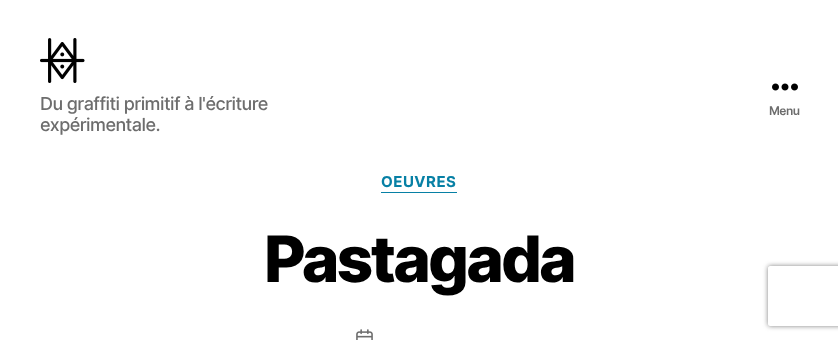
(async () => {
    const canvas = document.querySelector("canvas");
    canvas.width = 838;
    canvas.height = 340;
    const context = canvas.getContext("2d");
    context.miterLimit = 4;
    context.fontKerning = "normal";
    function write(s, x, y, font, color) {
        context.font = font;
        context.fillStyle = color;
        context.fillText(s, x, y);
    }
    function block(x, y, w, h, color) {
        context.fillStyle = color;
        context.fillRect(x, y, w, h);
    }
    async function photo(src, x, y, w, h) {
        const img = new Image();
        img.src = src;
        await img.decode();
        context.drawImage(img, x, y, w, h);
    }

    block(0, 0, 838, 340, "rgb(255, 255, 255)");
    await photo("media/1.png", 40, 38, 45, 45);
    context.letterSpacing = "-0.55px";
    write("Du graffiti primitif à l'écriture", 40, 110, "500 18px Inter", "rgb(109, 109, 109)");
    write("expérimentale.", 40, 131, "500 18px Inter", "rgb(109, 109, 109)");
    await photo("media/2.png", 772, 83, 26, 8);
    context.letterSpacing = "-0.5px";
    write("Menu", 769, 115, "600 12px Inter", "rgb(109, 109, 109)");
    block(381, 192, 76, 1, "rgb(7, 128, 165)");
    context.letterSpacing = "0.5px";
    write("OEUVRES", 381, 187, "bold 15px Inter", "rgb(7, 128, 165)");
    context.letterSpacing = "-2.75px";
    write("Pastagada", 264, 282, "800 64px Inter", "rgb(0, 0, 0)");
    await photo("media/3.png", 356, 329, 17, 11);
    context.save();
    context.beginPath();
    context.moveTo(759, 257);
    context.lineTo(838, 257);
    context.lineTo(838, 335);
    context.lineTo(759, 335);
    context.closePath();
    context.moveTo(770, 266);
    context.lineTo(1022, 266);
    context.bezierCurveTo(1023, 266, 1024, 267, 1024, 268);
    context.lineTo(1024, 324);
    context.bezierCurveTo(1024, 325, 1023, 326, 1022, 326);
    context.lineTo(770, 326);
    context.bezierCurveTo(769, 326, 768, 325, 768, 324);
    context.lineTo(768, 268);
    context.bezierCurveTo(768, 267, 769, 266, 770, 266);
    context.closePath();
    context.clip("evenodd");
    context.fillStyle = "rgb(128, 128, 128)";
    context.filter = "blur(2.5px)";
    context.beginPath();
    context.roundRect(768, 266, 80, 60, 2);
    context.fill();
    context.filter = "none";
    context.restore();
})();
